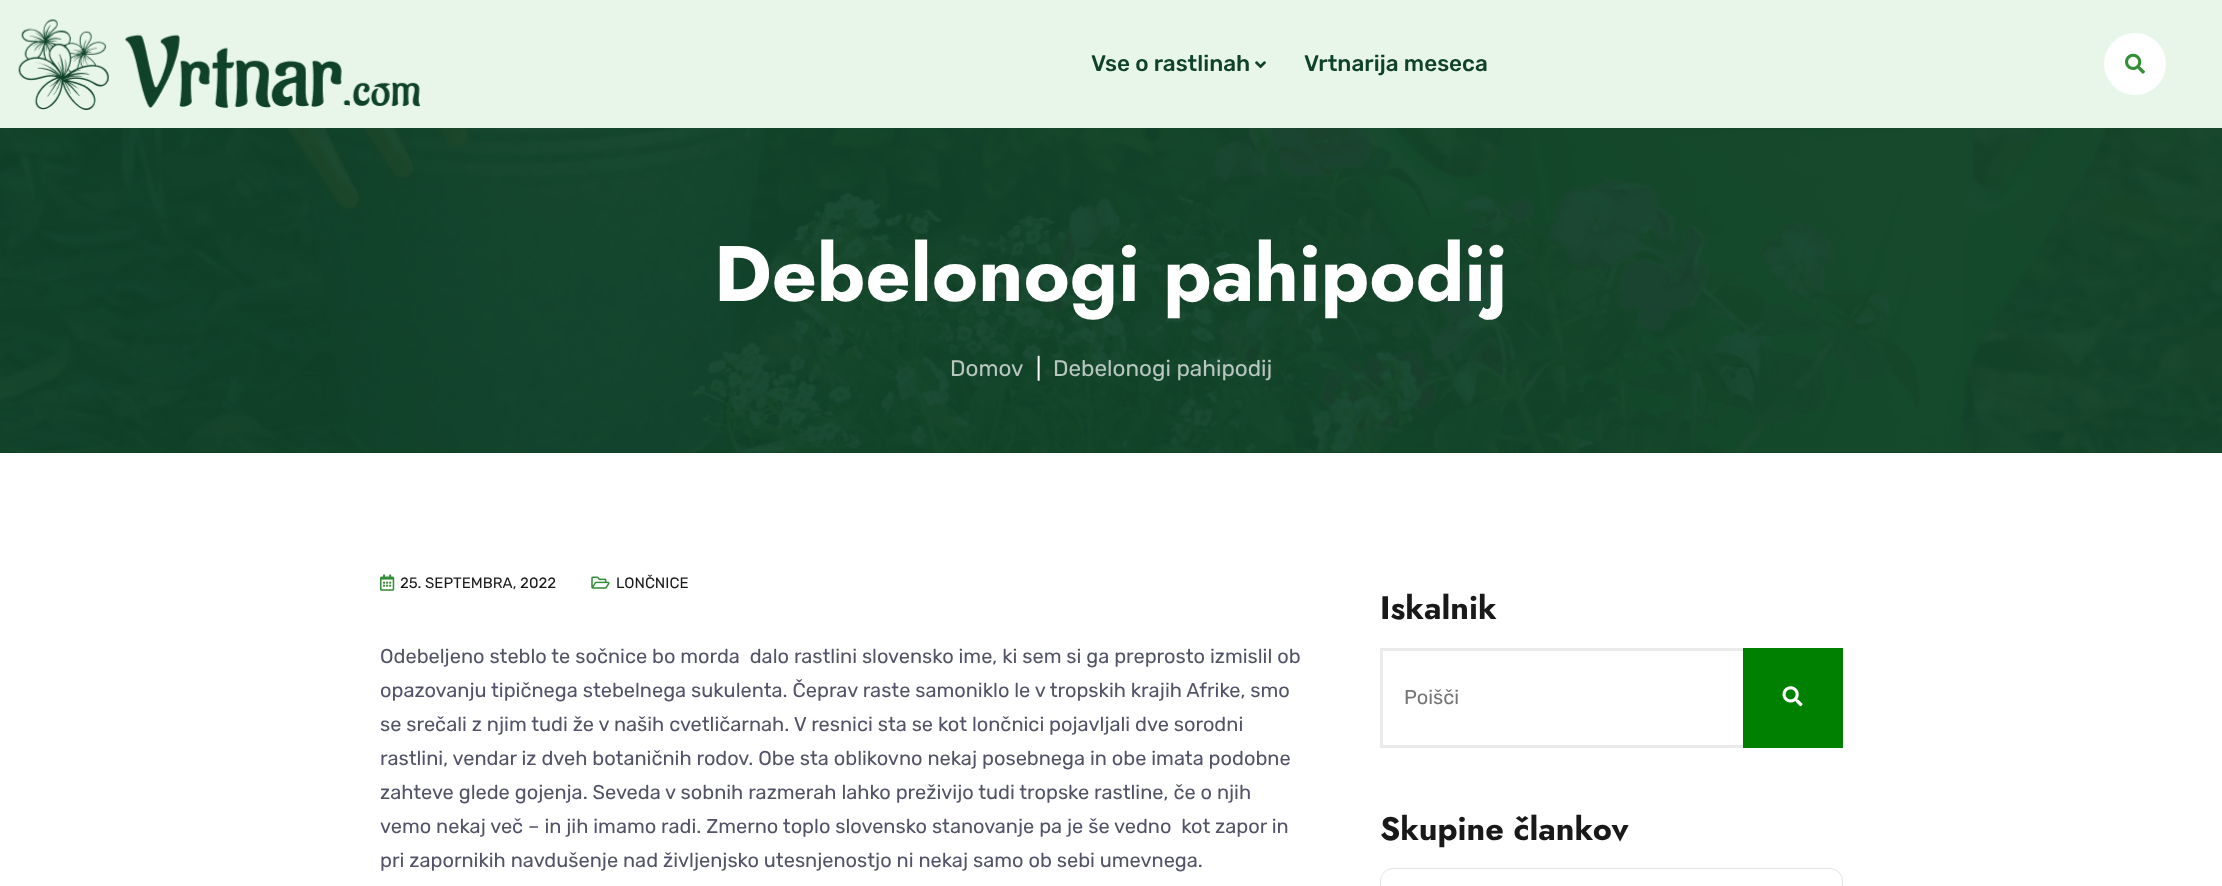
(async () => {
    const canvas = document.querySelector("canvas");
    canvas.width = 2222;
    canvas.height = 886;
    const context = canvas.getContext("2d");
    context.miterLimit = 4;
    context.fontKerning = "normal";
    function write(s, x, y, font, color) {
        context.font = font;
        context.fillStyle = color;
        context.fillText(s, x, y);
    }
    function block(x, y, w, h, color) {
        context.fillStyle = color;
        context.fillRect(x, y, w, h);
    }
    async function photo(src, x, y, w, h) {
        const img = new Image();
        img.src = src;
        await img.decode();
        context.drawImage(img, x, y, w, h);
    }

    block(0, 0, 2222, 886, "rgb(255, 255, 255)");
    block(0, 0, 2222, 128, "rgb(232, 246, 233)");
    await photo("media/1.png", 18, 19, 403, 91);
    write("Vse o rastlinah", 1091, 71, "500 22.5px Rubik", "rgb(15, 66, 41)");
    await photo("media/2.png", 1255, 61, 11, 8);
    write("Vrtnarija meseca", 1304, 71, "500 22.5px Rubik", "rgb(15, 66, 41)");
    context.fillStyle = "rgb(255, 255, 255)";
    context.beginPath();
    context.arc(2135, 64, 31, 0, Math.PI * 2);
    context.fill();
    await photo("media/3.png", 2125, 53, 20, 21);
    block(0, 452, 2222, 1, "rgb(15, 66, 41)");
    await photo("media/4.png", 0, 128, 2222, 325);
    write("Debelonogi pahipodij", 714, 301, "bold 78.75px Jost", "rgb(255, 255, 255)");
    write("Domov", 950, 376, "22.5px Rubik", "rgb(184, 199, 191)");
    write("|", 1036, 376, "22.5px Rubik", "rgb(255, 255, 255)");
    write("Debelonogi pahipodij", 1053, 376, "22.5px Rubik", "rgb(184, 199, 191)");
    await photo("media/5.png", 380, 574, 15, 17);
    write("25. SEPTEMBRA, 2022", 400, 588, "15px Rubik", "rgb(25, 25, 25)");
    await photo("media/6.png", 591, 576, 19, 13);
    write("LONČNICE", 616, 588, "15px Rubik", "rgb(25, 25, 25)");
    write("Odebeljeno steblo te sočnice bo morda  dalo rastlini slovensko ime, ki sem si ga preprosto izmislil ob", 380, 663, "20px Rubik", "rgb(82, 83, 104)");
    write("opazovanju tipičnega stebelnega sukulenta. Čeprav raste samoniklo le v tropskih krajih Afrike, smo", 380, 697, "20px Rubik", "rgb(82, 83, 104)");
    write("se srečali z njim tudi že v naših cvetličarnah. V resnici sta se kot lončnici pojavljali dve sorodni", 380, 731, "20px Rubik", "rgb(82, 83, 104)");
    write("rastlini, vendar iz dveh botaničnih rodov. Obe sta oblikovno nekaj posebnega in obe imata podobne", 380, 765, "20px Rubik", "rgb(82, 83, 104)");
    write("zahteve glede gojenja. Seveda v sobnih razmerah lahko preživijo tudi tropske rastline, če o njih", 380, 799, "20px Rubik", "rgb(82, 83, 104)");
    write("vemo nekaj več – in jih imamo radi. Zmerno toplo slovensko stanovanje pa je še vedno  kot zapor in", 380, 833, "20px Rubik", "rgb(82, 83, 104)");
    write("pri zapornikih navdušenje nad življenjsko utesnjenostjo ni nekaj samo ob sebi umevnega.", 380, 867, "20px Rubik", "rgb(82, 83, 104)");
    write("Iskalnik", 1380, 619, "bold 32.5px Jost", "rgb(25, 25, 25)");
    context.strokeStyle = "rgb(234, 234, 234)";
    context.lineWidth = 3;
    context.strokeRect(1381.5, 649.5, 460, 97);
    write("Poišči", 1404, 704, "20px Rubik", "rgb(117, 117, 117)");
    block(1743, 648, 100, 100, "rgb(0, 128, 0)");
    await photo("media/7.png", 1782, 686, 21, 21);
    write("Skupine člankov", 1380, 840, "bold 32.5px Jost", "rgb(25, 25, 25)");
    context.beginPath();
    context.roundRect(1380.5, 868.5, 462, 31, 12.5);
    context.strokeStyle = "rgb(227, 227, 227)";
    context.lineWidth = 1;
    context.stroke();
})();
